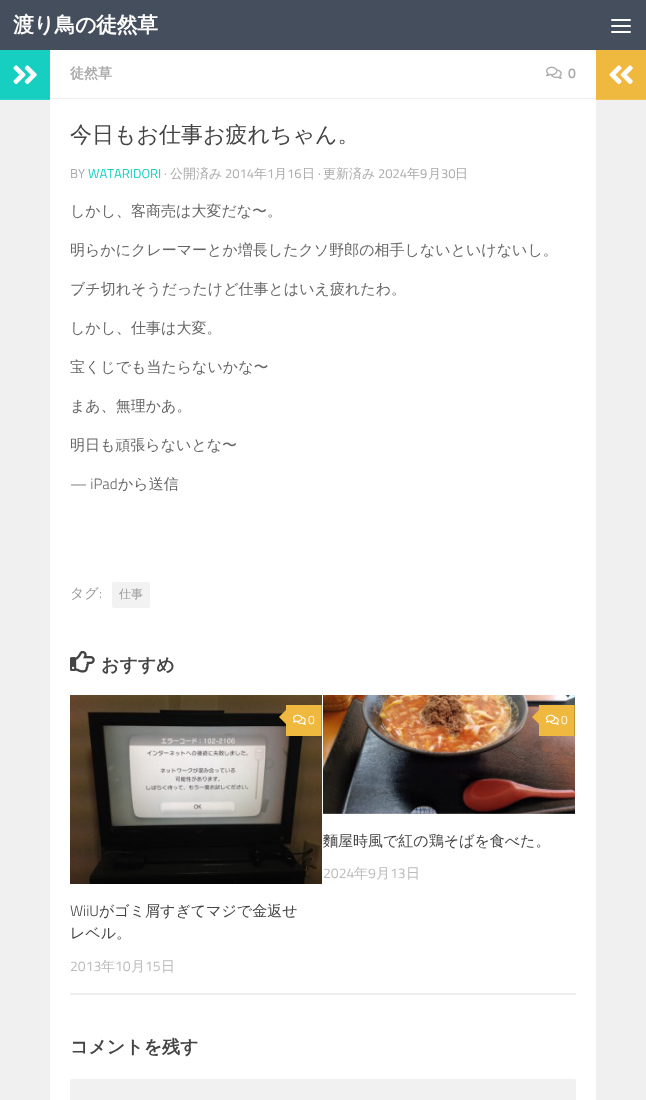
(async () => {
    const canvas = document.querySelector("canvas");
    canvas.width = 646;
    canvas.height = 1100;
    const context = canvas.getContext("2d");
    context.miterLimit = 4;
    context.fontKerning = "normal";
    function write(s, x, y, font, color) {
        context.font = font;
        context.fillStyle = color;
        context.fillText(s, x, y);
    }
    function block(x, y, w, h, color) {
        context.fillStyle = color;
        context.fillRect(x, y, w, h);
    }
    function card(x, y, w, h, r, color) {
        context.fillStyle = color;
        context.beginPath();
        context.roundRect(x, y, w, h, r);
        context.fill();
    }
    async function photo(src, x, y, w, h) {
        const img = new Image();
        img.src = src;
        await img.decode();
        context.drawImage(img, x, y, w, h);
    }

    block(0, 0, 646, 1100, "rgb(255, 255, 255)");
    block(0, 0, 646, 50, "rgb(69, 78, 92)");
    context.letterSpacing = "-0.5px";
    write("渡り鳥の徒然草", 13, 32, "bold 21px WenQuanYi Zen Hei", "rgb(255, 255, 255)");
    card(611, 19, 20, 2, 1, "rgb(255, 255, 255)");
    card(611, 25, 20, 2, 1, "rgb(255, 255, 255)");
    card(611, 31, 20, 2, 1, "rgb(255, 255, 255)");
    block(0, 100, 50, 1000, "rgb(240, 240, 240)");
    block(0, 50, 50, 49, "rgb(22, 207, 193)");
    block(0, 99, 50, 1, "rgb(45, 212, 199)");
    await photo("media/1.png", 13, 65, 24, 20);
    block(50, 98, 546, 1, "rgb(238, 238, 238)");
    context.letterSpacing = "0px";
    write("徒然草", 70, 78, "bold 14px WenQuanYi Zen Hei", "rgb(170, 170, 170)");
    await photo("media/2.png", 546, 66, 16, 13);
    write("0", 568, 78, "600 14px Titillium", "rgb(170, 170, 170)");
    write("今日もお仕事お疲れちゃん。", 70, 142, "500 22px WenQuanYi Zen Hei", "rgb(68, 68, 68)");
    write("BY", 70, 178, "13px Titillium", "rgb(170, 170, 170)");
    write("WATARIDORI", 88, 178, "13px Titillium", "rgb(22, 207, 193)");
    write("·", 164, 178, "13px Titillium", "rgb(170, 170, 170)");
    write("公開済み", 170, 178, "500 13px WenQuanYi Zen Hei", "rgb(170, 170, 170)");
    write("2014", 225, 178, "13px Titillium", "rgb(170, 170, 170)");
    write("年", 254, 178, "500 13px WenQuanYi Zen Hei", "rgb(170, 170, 170)");
    write("1", 267, 178, "13px Titillium", "rgb(170, 170, 170)");
    write("月", 274, 178, "500 13px WenQuanYi Zen Hei", "rgb(170, 170, 170)");
    write("16", 287, 178, "13px Titillium", "rgb(170, 170, 170)");
    write("日", 302, 178, "500 13px WenQuanYi Zen Hei", "rgb(170, 170, 170)");
    write("·", 318, 178, "13px Titillium", "rgb(170, 170, 170)");
    write("更新済み", 323, 178, "500 13px WenQuanYi Zen Hei", "rgb(170, 170, 170)");
    write("2024", 378, 178, "13px Titillium", "rgb(170, 170, 170)");
    write("年", 407, 178, "500 13px WenQuanYi Zen Hei", "rgb(170, 170, 170)");
    write("9", 420, 178, "13px Titillium", "rgb(170, 170, 170)");
    write("月", 428, 178, "500 13px WenQuanYi Zen Hei", "rgb(170, 170, 170)");
    write("30", 441, 178, "13px Titillium", "rgb(170, 170, 170)");
    write("日", 455, 178, "500 13px WenQuanYi Zen Hei", "rgb(170, 170, 170)");
    write("しかし、客商売は大変だな〜。", 70, 216, "500 15px WenQuanYi Zen Hei", "rgb(102, 102, 102)");
    write("明らかにクレーマーとか増長したクソ野郎の相手しないといけないし。", 70, 255, "500 15px WenQuanYi Zen Hei", "rgb(102, 102, 102)");
    write("ブチ切れそうだったけど仕事とはいえ疲れたわ。", 70, 294, "500 15px WenQuanYi Zen Hei", "rgb(102, 102, 102)");
    write("しかし、仕事は大変。", 70, 333, "500 15px WenQuanYi Zen Hei", "rgb(102, 102, 102)");
    write("宝くじでも当たらないかな〜", 70, 372, "500 15px WenQuanYi Zen Hei", "rgb(102, 102, 102)");
    write("まあ、無理かあ。", 70, 411, "500 15px WenQuanYi Zen Hei", "rgb(102, 102, 102)");
    write("明日も頑張らないとな〜", 70, 450, "500 15px WenQuanYi Zen Hei", "rgb(102, 102, 102)");
    write("— iPad", 70, 489, "300 15px Titillium", "rgb(102, 102, 102)");
    write("から送信", 118, 489, "500 15px WenQuanYi Zen Hei", "rgb(102, 102, 102)");
    write("タグ", 70, 598, "500 14px WenQuanYi Zen Hei", "rgb(153, 153, 153)");
    write(":", 99, 598, "300 14px Titillium", "rgb(153, 153, 153)");
    card(112, 582, 38, 26, 2, "rgb(242, 242, 242)");
    write("仕事", 119, 598, "500 12px WenQuanYi Zen Hei", "rgb(153, 153, 153)");
    await photo("media/3.png", 70, 650, 25, 23);
    write("おすすめ", 101, 671, "bold 18px WenQuanYi Zen Hei", "rgb(68, 68, 68)");
    block(70, 993, 506, 2, "rgb(238, 238, 238)");
    await photo("media/4.png", 70, 695, 252, 189);
    block(286, 705, 35, 31, "rgb(239, 185, 63)");
    block(321, 705, 1, 31, "rgb(191, 148, 50)");
    context.fillStyle = "rgb(239, 185, 63)";
    context.beginPath();
    context.moveTo(288, 708);
    context.lineTo(288, 726);
    context.lineTo(279, 717);
    context.closePath();
    context.fill();
    await photo("media/5.png", 293, 714, 13, 11);
    write("0", 308, 724, "300 12px Titillium", "rgb(255, 255, 255)");
    write("WiiU", 70, 916, "300 15px Titillium", "rgb(68, 68, 68)");
    write("がゴミ屑すぎてマジで金返せ", 99, 916, "500 15px WenQuanYi Zen Hei", "rgb(68, 68, 68)");
    write("レベル。", 70, 938, "500 15px WenQuanYi Zen Hei", "rgb(68, 68, 68)");
    write("2013", 70, 971, "14px Titillium", "rgb(187, 187, 187)");
    write("年", 101, 971, "500 14px WenQuanYi Zen Hei", "rgb(187, 187, 187)");
    write("10", 115, 971, "14px Titillium", "rgb(187, 187, 187)");
    write("月", 131, 971, "500 14px WenQuanYi Zen Hei", "rgb(187, 187, 187)");
    write("15", 145, 971, "14px Titillium", "rgb(187, 187, 187)");
    write("日", 161, 971, "500 14px WenQuanYi Zen Hei", "rgb(187, 187, 187)");
    await photo("media/6.png", 323, 695, 252, 119);
    block(539, 705, 35, 31, "rgb(239, 185, 63)");
    block(574, 705, 1, 31, "rgb(191, 148, 50)");
    context.fillStyle = "rgb(239, 185, 63)";
    context.beginPath();
    context.moveTo(541, 708);
    context.lineTo(541, 726);
    context.lineTo(532, 717);
    context.closePath();
    context.fill();
    await photo("media/5.png", 546, 714, 13, 11);
    write("0", 561, 724, "300 12px Titillium", "rgb(255, 255, 255)");
    write("麵屋時風で紅の鶏そばを食べた。", 323, 846, "500 15px WenQuanYi Zen Hei", "rgb(68, 68, 68)");
    write("2024", 323, 878, "14px Titillium", "rgb(187, 187, 187)");
    write("年", 354, 878, "500 14px WenQuanYi Zen Hei", "rgb(187, 187, 187)");
    write("9", 368, 878, "14px Titillium", "rgb(187, 187, 187)");
    write("月", 376, 878, "500 14px WenQuanYi Zen Hei", "rgb(187, 187, 187)");
    write("13", 390, 878, "14px Titillium", "rgb(187, 187, 187)");
    write("日", 406, 878, "500 14px WenQuanYi Zen Hei", "rgb(187, 187, 187)");
    write("コメントを残す", 70, 1053, "bold 18px WenQuanYi Zen Hei", "rgb(68, 68, 68)");
    card(70, 1079, 506, 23, 2, "rgb(241, 241, 241)");
    block(596, 50, 50, 49, "rgb(239, 185, 63)");
    block(596, 99, 50, 1, "rgb(241, 192, 82)");
    await photo("media/7.png", 609, 65, 24, 20);
    block(596, 100, 50, 1000, "rgb(240, 240, 240)");
})();
